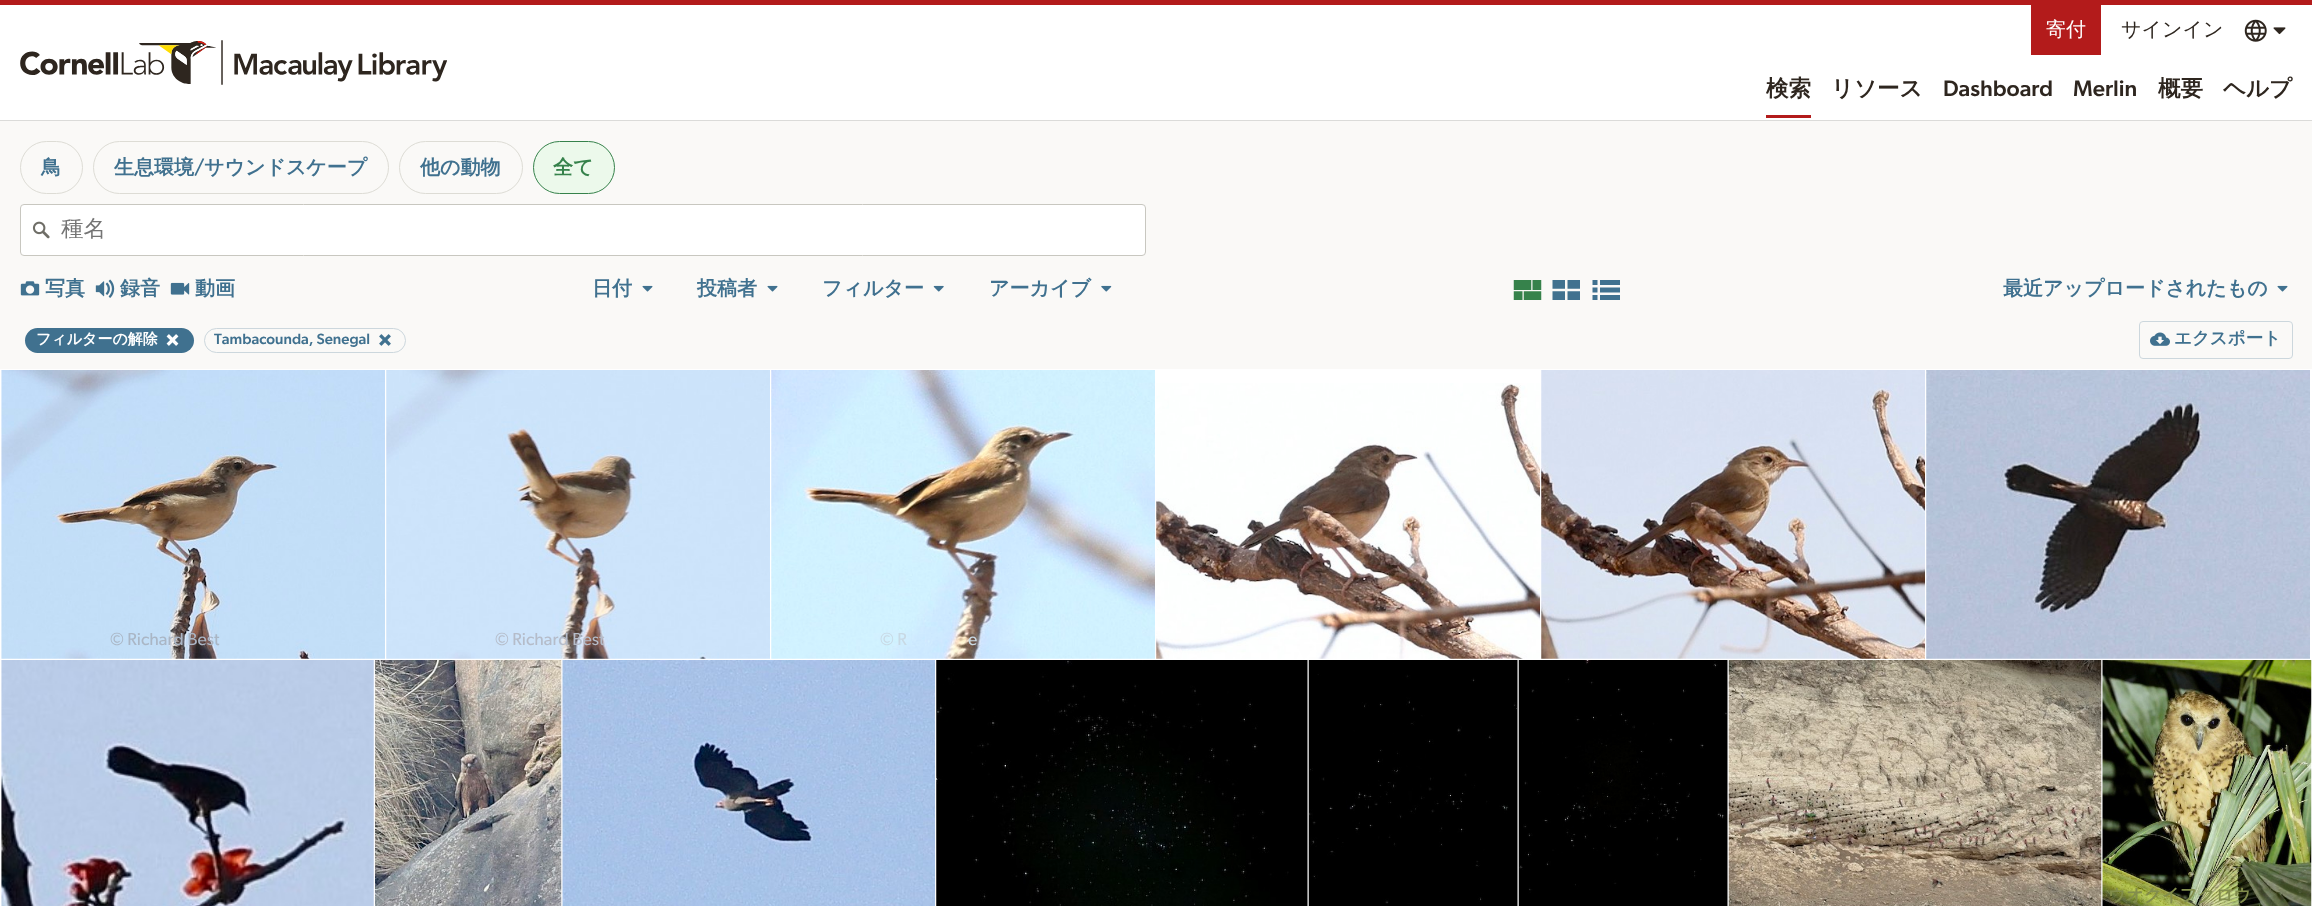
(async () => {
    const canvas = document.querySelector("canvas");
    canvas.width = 2312;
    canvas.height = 906;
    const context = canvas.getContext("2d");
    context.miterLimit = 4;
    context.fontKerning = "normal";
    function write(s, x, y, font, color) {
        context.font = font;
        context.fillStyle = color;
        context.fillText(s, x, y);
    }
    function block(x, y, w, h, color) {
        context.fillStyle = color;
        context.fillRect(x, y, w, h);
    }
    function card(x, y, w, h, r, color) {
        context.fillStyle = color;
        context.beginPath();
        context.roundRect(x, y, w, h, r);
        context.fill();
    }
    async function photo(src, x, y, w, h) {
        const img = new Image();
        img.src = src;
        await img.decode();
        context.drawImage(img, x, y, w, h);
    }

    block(0, 0, 2312, 906, "rgb(255, 255, 255)");
    block(0, 0, 2312, 5, "rgb(179, 27, 27)");
    block(0, 120, 2312, 1, "rgb(219, 219, 217)");
    await photo("media/1.png", 20, 40, 427, 45);
    block(2031, 5, 70, 50, "rgb(179, 27, 27)");
    write("寄付", 2046, 36, "500 20px WenQuanYi Zen Hei", "rgb(255, 255, 255)");
    write("サインイン", 2121, 36, "500 20px WenQuanYi Zen Hei", "rgb(46, 38, 31)");
    await photo("media/2.png", 2244, 19, 23, 23);
    await photo("media/3.png", 2273, 27, 13, 8);
    block(1766, 115, 45, 3, "rgb(179, 27, 27)");
    write("検索", 1766, 96, "bold 22.5px WenQuanYi Zen Hei", "rgb(46, 38, 31)");
    write("リソース", 1831, 96, "bold 22.5px WenQuanYi Zen Hei", "rgb(46, 38, 31)");
    write("Dashboard", 1943, 96, "500 22.5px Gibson", "rgb(46, 38, 31)");
    write("Merlin", 2073, 96, "500 22.5px Gibson", "rgb(46, 38, 31)");
    write("概要", 2158, 96, "bold 22.5px WenQuanYi Zen Hei", "rgb(46, 38, 31)");
    write("ヘルプ", 2223, 96, "bold 22.5px WenQuanYi Zen Hei", "rgb(46, 38, 31)");
    block(0, 121, 2312, 248, "rgb(250, 249, 247)");
    context.beginPath();
    context.roundRect(20.5, 141.5, 62, 52, 26);
    context.strokeStyle = "rgb(221, 220, 213)";
    context.stroke();
    write("鳥", 41, 174, "bold 20px WenQuanYi Zen Hei", "rgb(64, 113, 143)");
    context.beginPath();
    context.roundRect(93.5, 141.5, 295, 52, 26);
    context.stroke();
    write("生息環境", 114, 174, "bold 20px WenQuanYi Zen Hei", "rgb(64, 113, 143)");
    write("/", 194, 174, "500 20px Gibson", "rgb(64, 113, 143)");
    write("サウンドスケープ", 204, 174, "bold 20px WenQuanYi Zen Hei", "rgb(64, 113, 143)");
    context.beginPath();
    context.roundRect(399.5, 141.5, 123, 52, 26);
    context.stroke();
    write("他の動物", 420, 174, "bold 20px WenQuanYi Zen Hei", "rgb(64, 113, 143)");
    context.fillStyle = "rgb(236, 249, 235)";
    context.beginPath();
    context.roundRect(533.5, 141.5, 81, 52, 26);
    context.fill();
    context.strokeStyle = "rgb(54, 130, 75)";
    context.stroke();
    write("全て", 553, 174, "bold 20px WenQuanYi Zen Hei", "rgb(54, 130, 75)");
    context.fillStyle = "rgb(255, 255, 255)";
    context.beginPath();
    context.roundRect(20.5, 204.5, 1125, 51, 3.5);
    context.fill();
    context.strokeStyle = "rgb(200, 199, 192)";
    context.stroke();
    await photo("media/4.png", 32, 221, 18, 18);
    write("種名", 61, 236, "500 22.5px WenQuanYi Zen Hei", "rgb(117, 117, 117)");
    await photo("media/5.png", 20, 281, 20, 15);
    write("写真", 45, 295, "bold 20px WenQuanYi Zen Hei", "rgb(64, 113, 143)");
    await photo("media/6.png", 95, 279, 20, 19);
    write("録音", 120, 295, "bold 20px WenQuanYi Zen Hei", "rgb(64, 113, 143)");
    await photo("media/7.png", 170, 282, 20, 13);
    write("動画", 195, 295, "bold 20px WenQuanYi Zen Hei", "rgb(64, 113, 143)");
    write("日付", 592, 295, "bold 20px WenQuanYi Zen Hei", "rgb(64, 113, 143)");
    await photo("media/8.png", 642, 285, 11, 7);
    write("投稿者", 697, 295, "bold 20px WenQuanYi Zen Hei", "rgb(64, 113, 143)");
    await photo("media/8.png", 767, 285, 11, 7);
    write("フィルター", 822, 295, "bold 20px WenQuanYi Zen Hei", "rgb(64, 113, 143)");
    await photo("media/9.png", 933, 285, 11, 7);
    write("アーカイブ", 989, 295, "bold 20px WenQuanYi Zen Hei", "rgb(64, 113, 143)");
    await photo("media/10.png", 1101, 285, 11, 7);
    await photo("media/11.png", 1513, 280, 29, 20);
    await photo("media/12.png", 1552, 280, 28, 20);
    await photo("media/13.png", 1592, 280, 28, 20);
    write("最近アップロードされたもの", 2003, 295, "bold 20px WenQuanYi Zen Hei", "rgb(64, 113, 143)");
    await photo("media/8.png", 2277, 285, 11, 7);
    card(25, 328, 169, 25, 12.5, "rgb(64, 113, 143)");
    write("フィルターの解除", 36, 344, "bold 15px WenQuanYi Zen Hei", "rgb(255, 255, 255)");
    await photo("media/14.png", 166, 334, 13, 12);
    context.beginPath();
    context.roundRect(204.5, 328.5, 201, 24, 12);
    context.strokeStyle = "rgb(204, 215, 221)";
    context.stroke();
    write("Tambacounda, Senegal", 214, 344, "500 15px Gibson", "rgb(64, 113, 143)");
    await photo("media/15.png", 379, 334, 12, 12);
    context.beginPath();
    context.roundRect(2139.5, 321.5, 153, 37, 3.5);
    context.stroke();
    await photo("media/16.png", 2150, 332, 20, 14);
    write("エクスポート", 2174, 344, "bold 17.5px WenQuanYi Zen Hei", "rgb(64, 113, 143)");
    await photo("media/17.png", 1, 370, 384, 289);
    write("© Richard Best", 110, 645, "17.5px Gibson", "rgb(170, 182, 197)");
    await photo("media/18.png", 386, 370, 384, 289);
    write("© Richard Best", 495, 645, "17.5px Gibson", "rgb(181, 188, 201)");
    await photo("media/19.png", 771, 370, 384, 289);
    write("© R", 880, 645, "17.5px Gibson", "rgb(200, 217, 228)");
    write("e", 968, 645, "17.5px Gibson", "rgb(200, 217, 228)");
    await photo("media/20.png", 1156, 383, 384, 276);
    await photo("media/21.png", 1541, 370, 384, 289);
    await photo("media/22.png", 1926, 370, 384, 289);
    await photo("media/23.png", 1, 660, 373, 246);
    await photo("media/24.png", 375, 660, 187, 246);
    await photo("media/25.png", 562, 660, 373, 246);
    await photo("media/26.png", 936, 660, 372, 246);
    await photo("media/27.png", 1308, 660, 210, 246);
    await photo("media/28.png", 1518, 660, 210, 246);
    await photo("media/29.png", 1728, 660, 374, 246);
    await photo("media/30.png", 2102, 660, 210, 246);
    write("ウオクイフクロウ", 2108, 901, "bold 17.5px WenQuanYi Zen Hei", "rgb(130, 141, 76)");
})();
